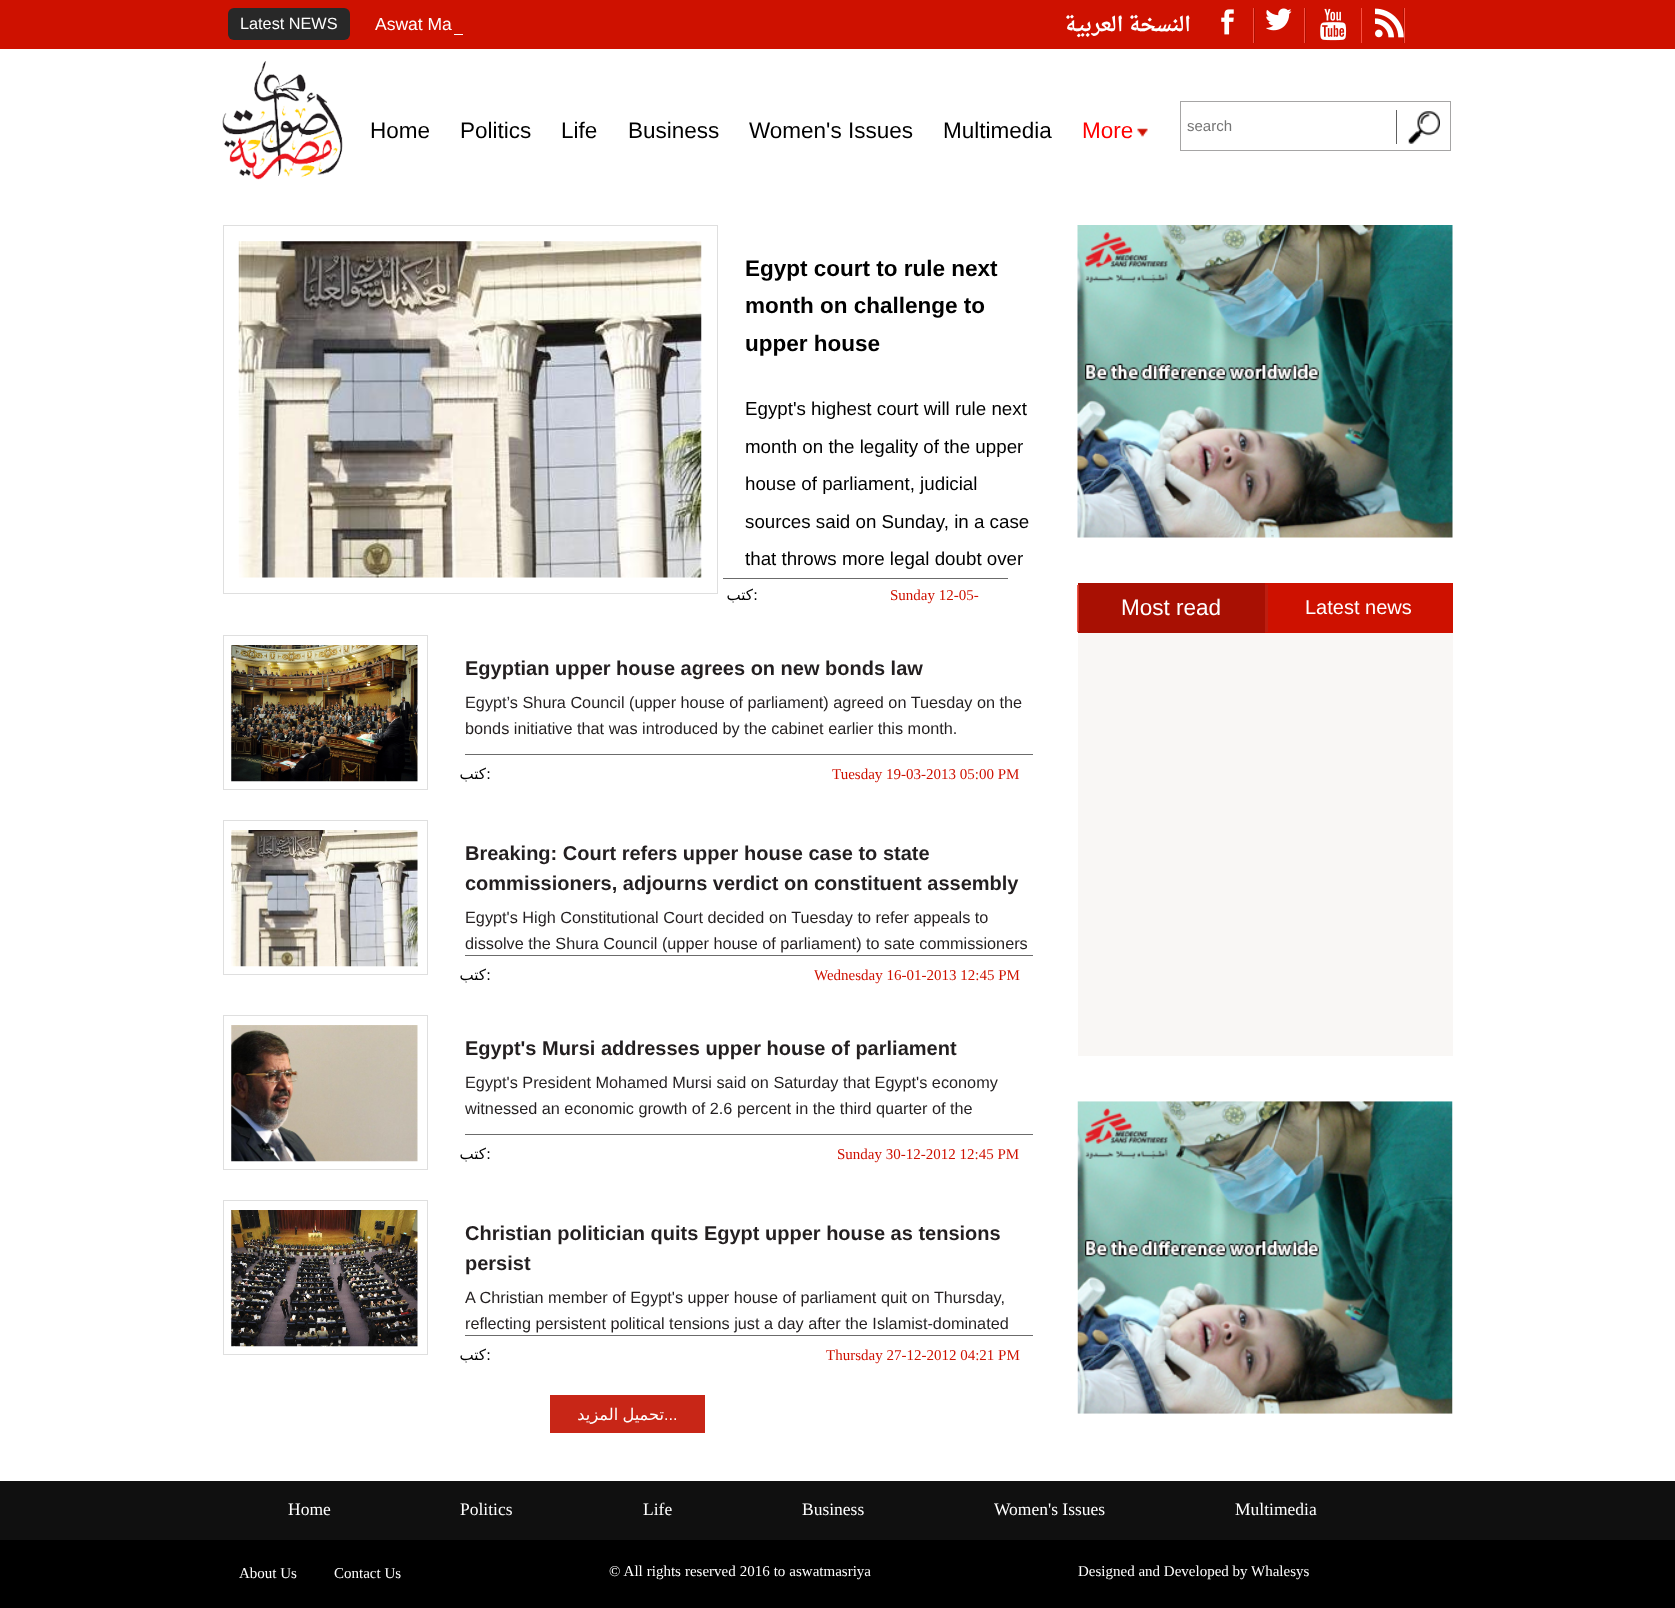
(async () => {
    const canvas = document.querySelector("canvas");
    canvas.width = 1675;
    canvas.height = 1608;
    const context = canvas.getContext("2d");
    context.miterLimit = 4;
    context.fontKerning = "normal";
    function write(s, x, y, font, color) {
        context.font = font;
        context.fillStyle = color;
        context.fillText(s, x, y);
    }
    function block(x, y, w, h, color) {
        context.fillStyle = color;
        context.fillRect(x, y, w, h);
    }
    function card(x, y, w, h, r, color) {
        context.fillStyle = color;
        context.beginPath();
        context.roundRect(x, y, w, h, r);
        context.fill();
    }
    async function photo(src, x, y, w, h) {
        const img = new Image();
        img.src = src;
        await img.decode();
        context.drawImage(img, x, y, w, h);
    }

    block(0, 0, 1675, 1608, "rgb(255, 255, 255)");
    block(0, 0, 1675, 49, "rgb(206, 17, 0)");
    card(228, 8, 122, 32, 6, "rgb(40, 40, 40)");
    write("Latest NEWS", 240, 29, "16.25px Liberation Sans", "rgb(255, 255, 255)");
    write("Aswat Ma", 375, 30, "17.5px Liberation Sans", "rgb(255, 255, 255)");
    block(454, 34, 9, 1, "rgb(255, 255, 255)");
    context.direction = "rtl";
    write("النسخة العربية", 1191, 31, "bold 20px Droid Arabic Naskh", "rgb(255, 255, 255)");
    await photo("media/1.png", 1221, 9, 13, 26);
    block(1254, 8, 1, 35, "rgb(173, 16, 2)");
    block(1253, 8, 1, 35, "rgb(250, 80, 65)");
    await photo("media/2.png", 1266, 8, 26, 23);
    block(1305, 8, 1, 35, "rgb(173, 16, 2)");
    block(1304, 8, 1, 35, "rgb(250, 80, 65)");
    await photo("media/3.png", 1320, 8, 27, 33);
    block(1403, 8, 1, 35, "rgb(173, 16, 2)");
    block(1404, 8, 1, 35, "rgb(250, 80, 65)");
    block(1361, 8, 1, 35, "rgb(250, 80, 65)");
    await photo("media/4.png", 1375, 8, 29, 30);
    await photo("media/5.png", 222, 61, 121, 119);
    context.direction = "ltr";
    write("Home", 370, 138, "22.5px Liberation Sans", "rgb(0, 0, 0)");
    write("Politics", 460, 138, "22.5px Liberation Sans", "rgb(0, 0, 0)");
    write("Life", 561, 138, "22.5px Liberation Sans", "rgb(0, 0, 0)");
    write("Business", 628, 138, "22.5px Liberation Sans", "rgb(0, 0, 0)");
    write("Women's Issues", 749, 138, "22.5px Liberation Sans", "rgb(0, 0, 0)");
    write("Multimedia", 943, 138, "22.5px Liberation Sans", "rgb(0, 0, 0)");
    await photo("media/6.png", 1137, 128, 11, 9);
    write("More", 1082, 138, "22.5px Liberation Sans", "rgb(255, 0, 0)");
    context.strokeStyle = "rgb(166, 165, 165)";
    context.strokeRect(1180.5, 101.5, 270, 49);
    write("search", 1187, 131, "15px Liberation Sans", "rgb(117, 117, 117)");
    await photo("media/7.png", 1408, 111, 32, 33);
    block(1396, 110, 1, 34, "rgb(96, 96, 96)");
    context.strokeStyle = "rgb(223, 223, 223)";
    context.strokeRect(223.5, 225.5, 494, 368);
    await photo("media/8.png", 238, 241, 464, 337);
    write("Egypt court to rule next", 745, 276, "bold 22.5px Liberation Sans", "rgb(0, 0, 0)");
    write("month on challenge to", 745, 313, "bold 22.5px Liberation Sans", "rgb(0, 0, 0)");
    write("upper house", 745, 351, "bold 22.5px Liberation Sans", "rgb(0, 0, 0)");
    write("Egypt's highest court will rule next", 745, 415, "18.75px Liberation Sans", "rgb(0, 0, 0)");
    write("month on the legality of the upper", 745, 453, "18.75px Liberation Sans", "rgb(0, 0, 0)");
    write("house of parliament, judicial", 745, 490, "18.75px Liberation Sans", "rgb(0, 0, 0)");
    write("sources said on Sunday, in a case", 745, 528, "18.75px Liberation Sans", "rgb(0, 0, 0)");
    write("that throws more legal doubt over", 745, 565, "18.75px Liberation Sans", "rgb(0, 0, 0)");
    block(723, 578, 285, 1, "rgb(107, 107, 107)");
    context.direction = "rtl";
    write("كتب", 753, 600, "15px DejaVu Sans", "rgb(0, 0, 0)");
    context.direction = "ltr";
    write(":", 753, 600, "15px DejaVu Sans", "rgb(0, 0, 0)");
    write("Sunday 12-05-", 890, 600, "15px Liberation Serif", "rgb(206, 17, 0)");
    context.strokeRect(223.5, 635.5, 204, 154);
    await photo("media/9.png", 231, 645, 187, 137);
    block(465, 754, 568, 1, "rgb(107, 107, 107)");
    write("Egyptian upper house agrees on new bonds law", 465, 675, "bold 20px Liberation Sans", "rgb(35, 31, 32)");
    write("Egypt’s Shura Council (upper house of parliament) agreed on Tuesday on the", 465, 708, "16.25px Liberation Sans", "rgb(35, 31, 32)");
    write("bonds initiative that was introduced by the cabinet earlier this month.", 465, 734, "16.25px Liberation Sans", "rgb(35, 31, 32)");
    context.direction = "rtl";
    write("كتب", 486, 779, "15px DejaVu Sans", "rgb(0, 0, 0)");
    context.direction = "ltr";
    write(":", 486, 779, "15px DejaVu Sans", "rgb(0, 0, 0)");
    write("Tuesday 19-03-2013 05:00 PM", 832, 779, "15px Liberation Serif", "rgb(206, 17, 0)");
    context.strokeRect(223.5, 820.5, 204, 154);
    await photo("media/10.png", 231, 830, 187, 137);
    block(465, 955, 568, 1, "rgb(107, 107, 107)");
    write("Breaking: Court refers upper house case to state", 465, 860, "bold 20px Liberation Sans", "rgb(35, 31, 32)");
    write("commissioners, adjourns verdict on constituent assembly", 465, 890, "bold 20px Liberation Sans", "rgb(35, 31, 32)");
    write("Egypt's High Constitutional Court decided on Tuesday to refer appeals to", 465, 923, "16.25px Liberation Sans", "rgb(35, 31, 32)");
    write("dissolve the Shura Council (upper house of parliament) to sate commissioners", 465, 949, "16.25px Liberation Sans", "rgb(35, 31, 32)");
    context.direction = "rtl";
    write("كتب", 486, 980, "15px DejaVu Sans", "rgb(0, 0, 0)");
    context.direction = "ltr";
    write(":", 486, 980, "15px DejaVu Sans", "rgb(0, 0, 0)");
    write("Wednesday 16-01-2013 12:45 PM", 814, 980, "15px Liberation Serif", "rgb(206, 17, 0)");
    context.strokeRect(223.5, 1015.5, 204, 154);
    await photo("media/11.png", 231, 1025, 187, 137);
    block(465, 1134, 568, 1, "rgb(107, 107, 107)");
    write("Egypt's Mursi addresses upper house of parliament", 465, 1055, "bold 20px Liberation Sans", "rgb(35, 31, 32)");
    write("Egypt's President Mohamed Mursi said on Saturday that Egypt's economy", 465, 1088, "16.25px Liberation Sans", "rgb(35, 31, 32)");
    write("witnessed an economic growth of 2.6 percent in the third quarter of the", 465, 1114, "16.25px Liberation Sans", "rgb(35, 31, 32)");
    context.direction = "rtl";
    write("كتب", 486, 1159, "15px DejaVu Sans", "rgb(0, 0, 0)");
    context.direction = "ltr";
    write(":", 486, 1159, "15px DejaVu Sans", "rgb(0, 0, 0)");
    write("Sunday 30-12-2012 12:45 PM", 837, 1159, "15px Liberation Serif", "rgb(206, 17, 0)");
    context.strokeRect(223.5, 1200.5, 204, 154);
    await photo("media/12.png", 231, 1210, 187, 137);
    block(465, 1335, 568, 1, "rgb(107, 107, 107)");
    write("Christian politician quits Egypt upper house as tensions", 465, 1240, "bold 20px Liberation Sans", "rgb(35, 31, 32)");
    write("persist", 465, 1270, "bold 20px Liberation Sans", "rgb(35, 31, 32)");
    write("A Christian member of Egypt's upper house of parliament quit on Thursday,", 465, 1303, "16.25px Liberation Sans", "rgb(35, 31, 32)");
    write("reflecting persistent political tensions just a day after the Islamist-dominated", 465, 1329, "16.25px Liberation Sans", "rgb(35, 31, 32)");
    context.direction = "rtl";
    write("كتب", 486, 1360, "15px DejaVu Sans", "rgb(0, 0, 0)");
    context.direction = "ltr";
    write(":", 486, 1360, "15px DejaVu Sans", "rgb(0, 0, 0)");
    write("Thursday 27-12-2012 04:21 PM", 826, 1360, "15px Liberation Serif", "rgb(206, 17, 0)");
    block(550, 1395, 155, 38, "rgb(200, 38, 23)");
    context.wordSpacing = "-1px";
    context.direction = "rtl";
    write("تحميل المزيد", 664, 1420, "16.25px DejaVu Sans", "rgb(255, 255, 255)");
    context.wordSpacing = "0px";
    context.direction = "ltr";
    write("...", 664, 1420, "16.25px Liberation Sans", "rgb(255, 255, 255)");
    await photo("media/13.png", 1077, 225, 376, 313);
    block(1077, 585, 1, 47, "rgb(228, 95, 83)");
    block(1078, 583, 187, 50, "rgb(168, 16, 3)");
    await photo("media/14.png", 1077, 585, 2, 47);
    write("Most read", 1121, 615, "22.5px Liberation Sans", "rgb(255, 255, 255)");
    block(1265, 583, 188, 50, "rgb(206, 17, 0)");
    block(1265, 585, 3, 47, "rgb(189, 30, 16)");
    write("Latest news", 1305, 614, "20px Liberation Sans", "rgb(255, 255, 255)");
    block(1078, 633, 375, 423, "rgb(249, 247, 245)");
    await photo("media/15.png", 1077, 1101, 376, 313);
    block(0, 1481, 1675, 59, "rgb(16, 16, 16)");
    write("Home", 288, 1515, "17.5px Liberation Serif", "rgb(255, 255, 255)");
    write("Politics", 460, 1515, "17.5px Liberation Serif", "rgb(255, 255, 255)");
    write("Life", 643, 1515, "17.5px Liberation Serif", "rgb(255, 255, 255)");
    write("Business", 802, 1515, "17.5px Liberation Serif", "rgb(255, 255, 255)");
    write("Women's Issues", 994, 1515, "17.5px Liberation Serif", "rgb(255, 255, 255)");
    write("Multimedia", 1235, 1515, "17.5px Liberation Serif", "rgb(255, 255, 255)");
    block(0, 1540, 1675, 68, "rgb(0, 0, 0)");
    write("About Us", 239, 1578, "15px Liberation Serif", "rgb(255, 255, 255)");
    write("Contact Us", 334, 1578, "15px Liberation Serif", "rgb(255, 255, 255)");
    context.wordSpacing = "0.25px";
    write("© All rights reserved 2016 to aswatmasriya", 609, 1576, "15px Liberation Serif", "rgb(255, 255, 255)");
    context.wordSpacing = "0px";
    write("Designed and Developed by Whalesys", 1078, 1576, "15px Liberation Serif", "rgb(255, 255, 255)");
})();
